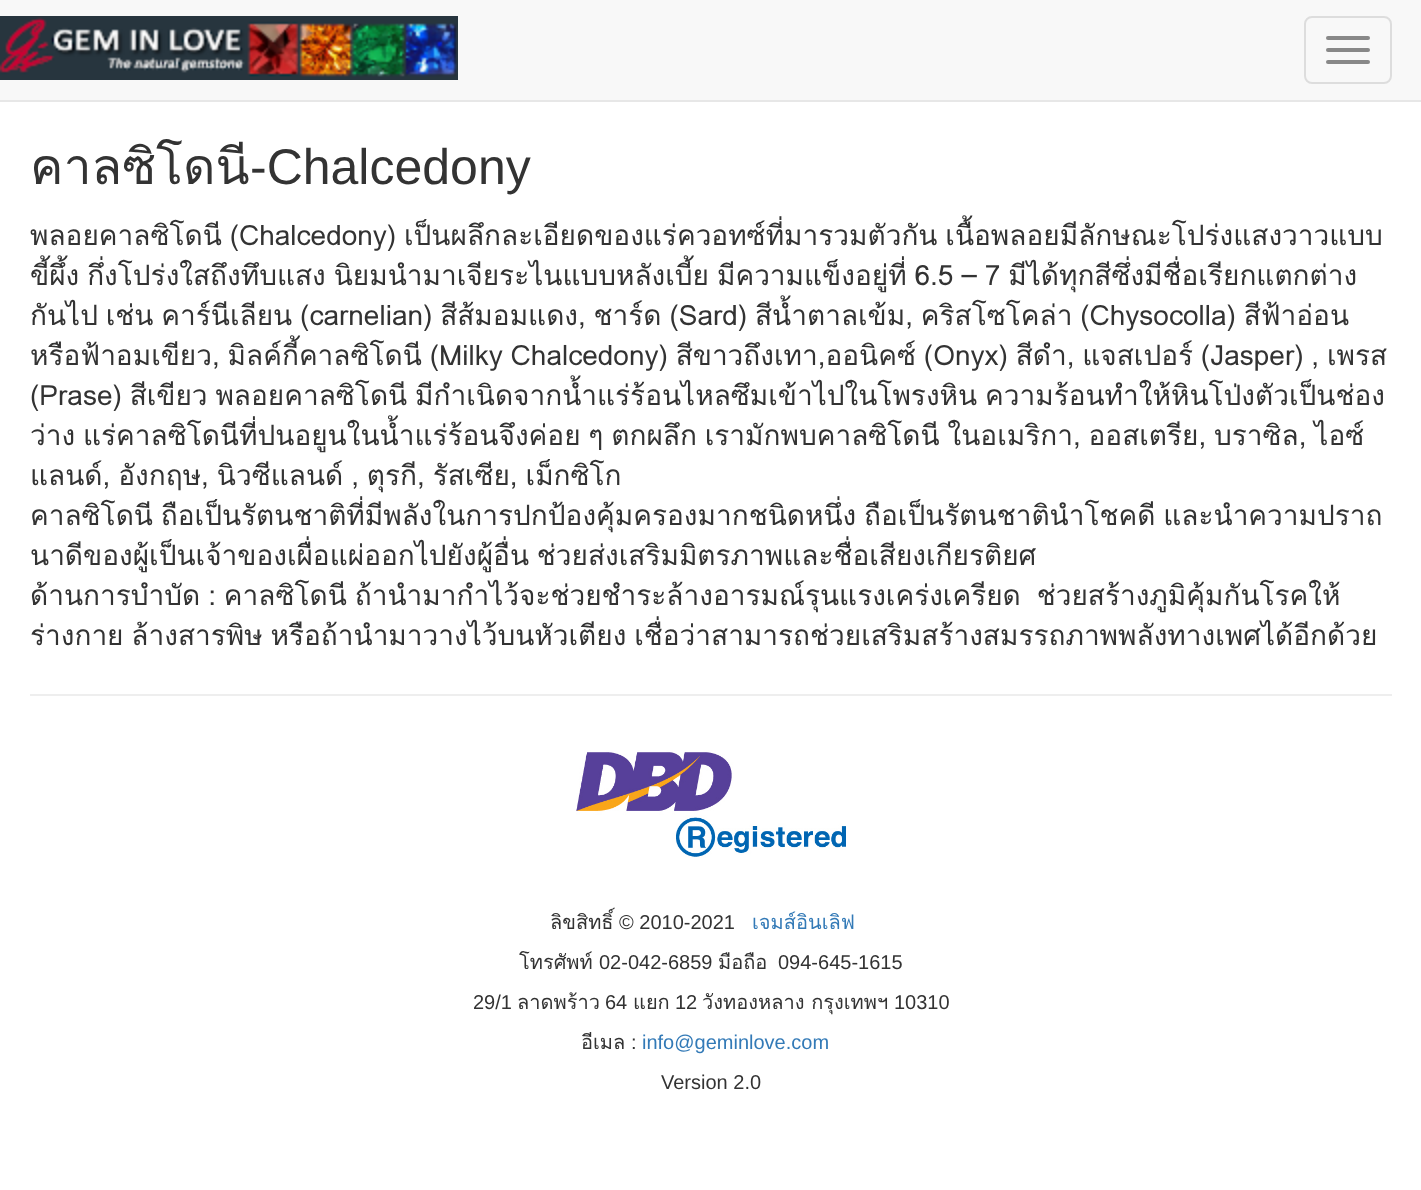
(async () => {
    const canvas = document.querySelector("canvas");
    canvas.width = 1421;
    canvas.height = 1190;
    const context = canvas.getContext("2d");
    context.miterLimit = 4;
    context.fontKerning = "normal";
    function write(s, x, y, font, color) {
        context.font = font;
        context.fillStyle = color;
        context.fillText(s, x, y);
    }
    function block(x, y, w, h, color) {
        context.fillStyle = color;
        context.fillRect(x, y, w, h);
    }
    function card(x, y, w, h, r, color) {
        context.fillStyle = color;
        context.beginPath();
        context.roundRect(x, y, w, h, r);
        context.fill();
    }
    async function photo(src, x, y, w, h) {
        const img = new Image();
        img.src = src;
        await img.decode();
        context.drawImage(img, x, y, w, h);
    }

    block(0, 0, 1421, 1190, "rgb(255, 255, 255)");
    block(0, 0, 1421, 100, "rgb(248, 248, 248)");
    block(0, 100, 1421, 2, "rgb(231, 231, 231)");
    await photo("media/1.png", 0, 16, 458, 64);
    context.beginPath();
    context.roundRect(1305, 17, 86, 66, 7);
    context.strokeStyle = "rgb(221, 221, 221)";
    context.lineWidth = 2;
    context.stroke();
    card(1326, 36, 44, 4, 2, "rgb(136, 136, 136)");
    card(1326, 48, 44, 4, 2, "rgb(136, 136, 136)");
    card(1326, 60, 44, 4, 2, "rgb(136, 136, 136)");
    write("คาลซิโดนี", 30, 184, "50px Loma", "rgb(51, 51, 51)");
    write("-Chalcedony", 250, 184, "50px Liberation Sans", "rgb(51, 51, 51)");
    context.wordSpacing = "-1.6px";
    write("พลอยคาลซิโดนี (Chalcedony) เป็นผลึกละเอียดของแร่ควอทซ์ที่มารวมตัวกัน เนื้อพลอยมีลักษณะโปร่งแสงวาวแบบ", 30, 245, "28px Loma", "rgb(51, 51, 51)");
    context.wordSpacing = "-1.5px";
    write("ขี้ผึ้ง กึ่งโปร่งใสถึงทึบแสง นิยมนำมาเจียระไนแบบหลังเบี้ย มีความแข็งอยู่ที่ 6.5 – 7 มีได้ทุกสีซึ่งมีชื่อเรียกแตกต่าง", 30, 285, "28px Loma", "rgb(51, 51, 51)");
    context.wordSpacing = "-1.6px";
    write("กันไป เช่น คาร์นีเลียน (carnelian) สีส้มอมแดง, ชาร์ด (Sard) สีน้ำตาลเข้ม, คริสโซโคล่า (Chysocolla) สีฟ้าอ่อน", 30, 325, "28px Loma", "rgb(51, 51, 51)");
    write("หรือฟ้าอมเขียว, มิลค์กี้คาลซิโดนี (Milky Chalcedony) สีขาวถึงเทา,ออนิคซ์ (Onyx) สีดำ, แจสเปอร์ (Jasper) , เพรส", 30, 365, "28px Loma", "rgb(51, 51, 51)");
    write("(Prase) สีเขียว พลอยคาลซิโดนี มีกำเนิดจากน้ำแร่ร้อนไหลซึมเข้าไปในโพรงหิน ความร้อนทำให้หินโป่งตัวเป็นช่อง", 30, 405, "28px Loma", "rgb(51, 51, 51)");
    write("ว่าง แร่คาลซิโดนีที่ปนอยูนในน้ำแร่ร้อนจึงค่อย ๆ ตกผลึก เรามักพบคาลซิโดนี ในอเมริกา, ออสเตรีย, บราซิล, ไอซ์", 30, 445, "28px Loma", "rgb(51, 51, 51)");
    context.wordSpacing = "-1.5px";
    write("แลนด์, อังกฤษ, นิวซีแลนด์ , ตุรกี, รัสเซีย, เม็กซิโก", 30, 485, "28px Loma", "rgb(51, 51, 51)");
    context.wordSpacing = "-1.6px";
    write("คาลซิโดนี ถือเป็นรัตนชาติที่มีพลังในการปกป้องคุ้มครองมากชนิดหนึ่ง ถือเป็นรัตนชาตินำโชคดี และนำความปราถ", 30, 525, "28px Loma", "rgb(51, 51, 51)");
    write("นาดีของผู้เป็นเจ้าของเผื่อแผ่ออกไปยังผู้อื่น ช่วยส่งเสริมมิตรภาพและชื่อเสียงเกียรติยศ", 30, 565, "28px Loma", "rgb(51, 51, 51)");
    context.wordSpacing = "-1.5px";
    write("ด้านการบำบัด : คาลซิโดนี ถ้านำมากำไว้จะช่วยชำระล้างอารมณ์รุนแรงเคร่งเครียด  ช่วยสร้างภูมิคุ้มกันโรคให้", 30, 605, "28px Loma", "rgb(51, 51, 51)");
    context.wordSpacing = "-1.6px";
    write("ร่างกาย ล้างสารพิษ หรือถ้านำมาวางไว้บนหัวเตียง เชื่อว่าสามารถช่วยเสริมสร้างสมรรถภาพพลังทางเพศได้อีกด้วย", 30, 645, "28px Loma", "rgb(51, 51, 51)");
    block(30, 694, 1362, 2, "rgb(238, 238, 238)");
    await photo("media/2.png", 576, 750, 270, 108);
    context.wordSpacing = "0px";
    write("ลิขสิทธิ์", 550, 929, "20px Loma", "rgb(51, 51, 51)");
    write("© 2010-2021", 619, 929, "20px Liberation Sans", "rgb(51, 51, 51)");
    write("เจมส์อินเลิฟ", 752, 929, "20px Loma", "rgb(51, 122, 183)");
    write("โทรศัพท์", 519, 969, "20px Loma", "rgb(51, 51, 51)");
    write("02-042-6859", 599, 969, "20px Liberation Sans", "rgb(51, 51, 51)");
    write("มือถือ", 718, 969, "20px Loma", "rgb(51, 51, 51)");
    write("094-645-1615", 778, 969, "20px Liberation Sans", "rgb(51, 51, 51)");
    write("29/1", 473, 1009, "20px Liberation Sans", "rgb(51, 51, 51)");
    write("ลาดพร้าว", 517, 1009, "20px Loma", "rgb(51, 51, 51)");
    write("64", 605, 1009, "20px Liberation Sans", "rgb(51, 51, 51)");
    write("แยก", 633, 1009, "20px Loma", "rgb(51, 51, 51)");
    write("12", 675, 1009, "20px Liberation Sans", "rgb(51, 51, 51)");
    write("วังทองหลาง กรุงเทพฯ", 702, 1009, "20px Loma", "rgb(51, 51, 51)");
    write("10310", 894, 1009, "20px Liberation Sans", "rgb(51, 51, 51)");
    write("อีเมล", 581, 1049, "20px Loma", "rgb(51, 51, 51)");
    write(":", 631, 1049, "20px Liberation Sans", "rgb(51, 51, 51)");
    write("info@geminlove.com", 642, 1049, "20px Liberation Sans", "rgb(51, 122, 183)");
    write("Version 2.0", 661, 1089, "20px Liberation Sans", "rgb(51, 51, 51)");
})();
